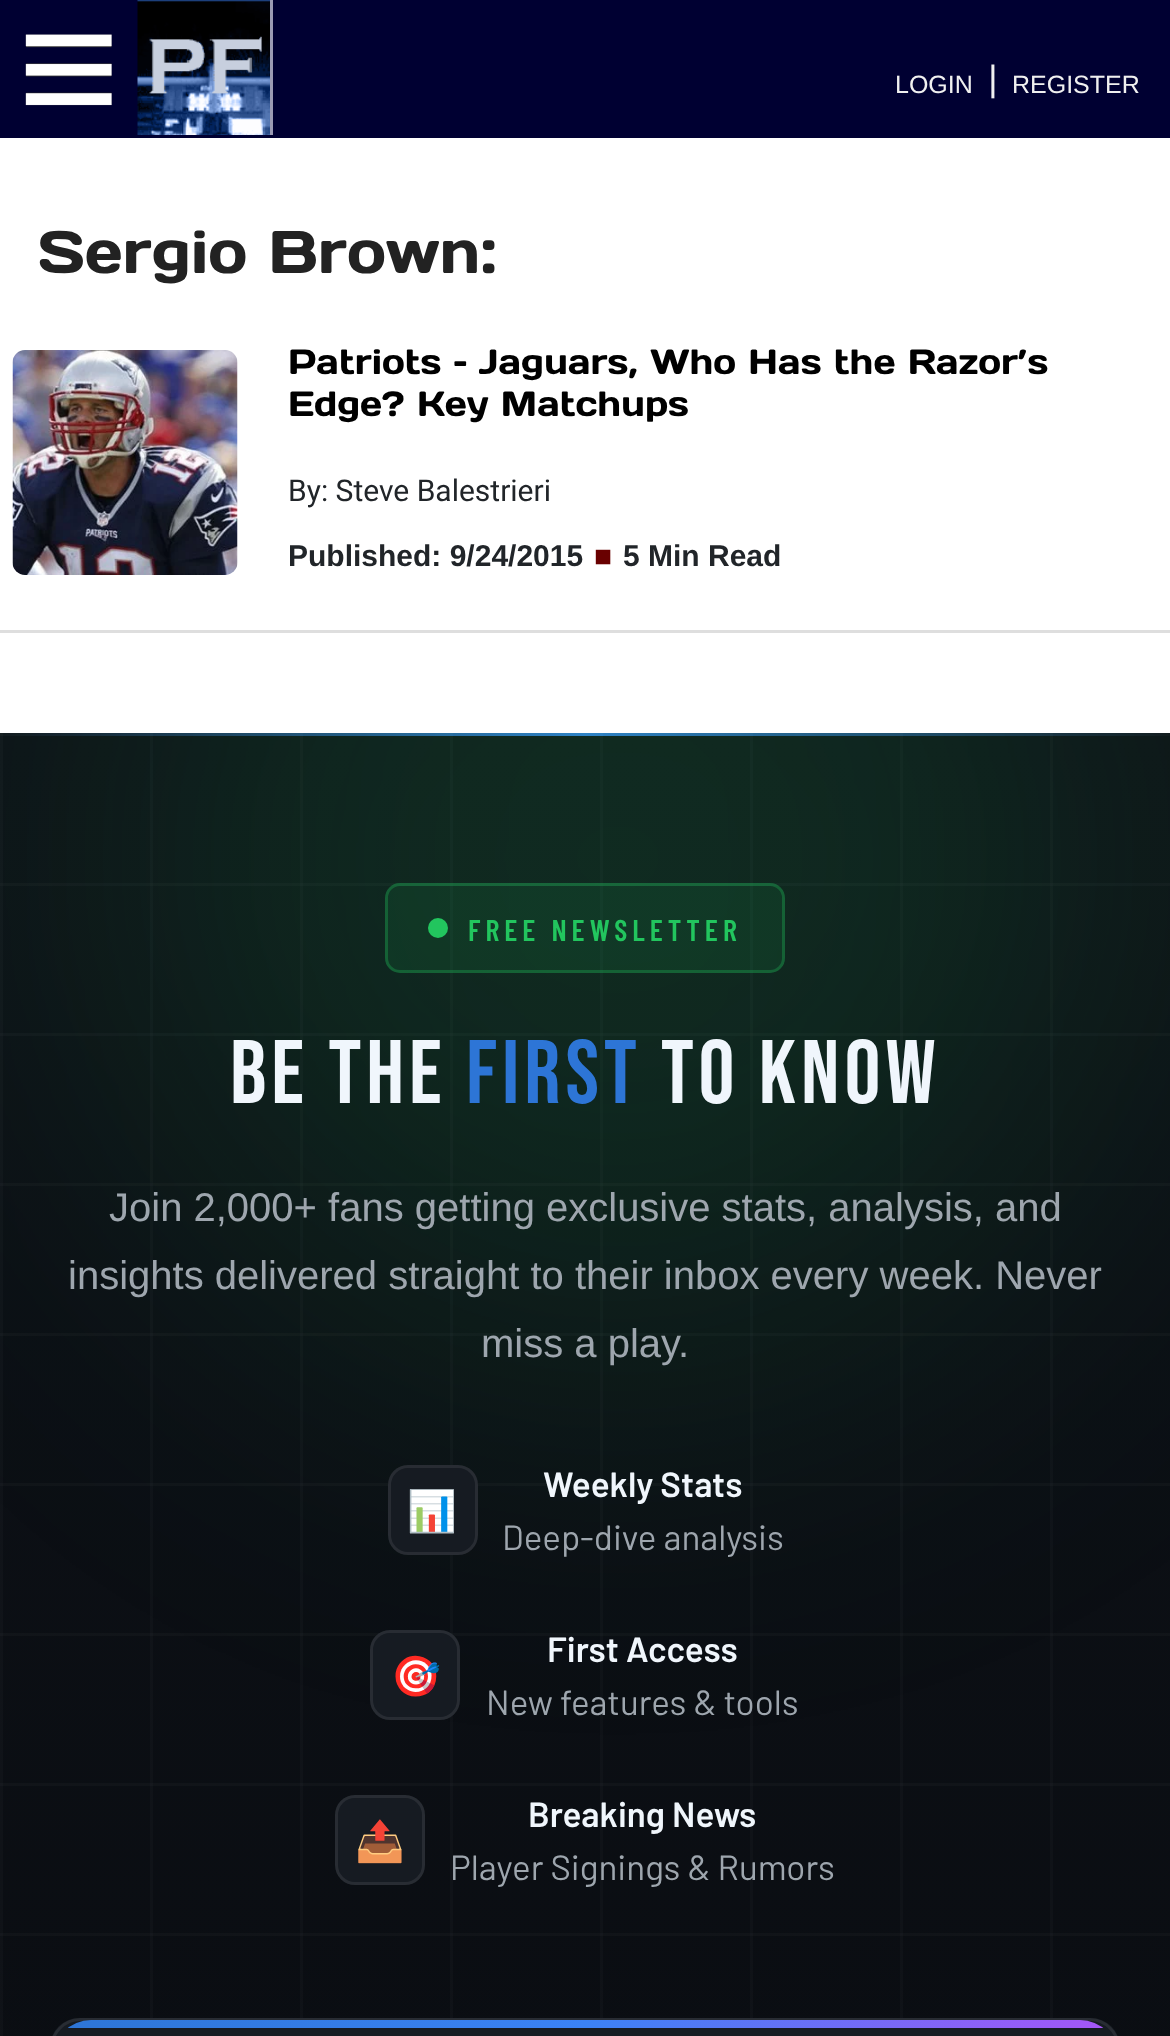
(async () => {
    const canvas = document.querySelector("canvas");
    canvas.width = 1170;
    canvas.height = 2036;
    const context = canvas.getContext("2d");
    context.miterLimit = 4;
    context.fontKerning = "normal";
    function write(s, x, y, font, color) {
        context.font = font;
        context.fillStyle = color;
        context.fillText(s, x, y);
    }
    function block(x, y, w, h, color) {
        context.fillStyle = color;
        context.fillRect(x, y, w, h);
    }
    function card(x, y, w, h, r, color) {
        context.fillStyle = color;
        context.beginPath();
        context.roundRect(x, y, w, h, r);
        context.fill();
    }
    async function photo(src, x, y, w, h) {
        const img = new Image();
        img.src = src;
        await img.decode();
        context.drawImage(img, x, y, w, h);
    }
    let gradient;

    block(0, 0, 1170, 2036, "rgb(255, 255, 255)");
    block(0, 0, 1170, 138, "rgb(0, 0, 50)");
    await photo("media/1.png", 25, 34, 87, 72);
    block(270, 0, 3, 135, "rgb(155, 155, 180)");
    await photo("media/2.png", 137, 0, 133, 135);
    write("LOGIN", 895, 93, "25px Liberation Sans", "rgb(240, 240, 240)");
    write("|", 988, 93, "40px Roboto", "rgb(240, 240, 240)");
    write("REGISTER", 1012, 93, "25px Liberation Sans", "rgb(240, 240, 240)");
    write("Sergio Brown:", 38, 273, "60px Days One", "rgb(34, 34, 34)");
    block(0, 630, 1170, 3, "rgb(222, 222, 222)");
    await photo("media/3.png", 12, 350, 226, 225);
    write("Patriots – Jaguars, Who Has the Razor’s", 288, 374, "35px Days One", "rgb(0, 0, 0)");
    write("Edge? Key Matchups", 288, 416, "35px Days One", "rgb(0, 0, 0)");
    write("By: Steve Balestrieri", 288, 501, "30px Roboto", "rgb(33, 37, 41)");
    write("Published: 9/24/2015", 288, 566, "bold 30px Liberation Sans", "rgb(33, 37, 41)");
    write("■", 594, 566, "30px Liberation Sans", "rgb(105, 0, 0)");
    write("5 Min Read", 623, 566, "bold 30px Liberation Sans", "rgb(33, 37, 41)");
    gradient = context.createLinearGradient(585, 733, 585, 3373);
    gradient.addColorStop(0, "rgb(13, 17, 23)");
    gradient.addColorStop(1, "rgb(8, 10, 14)");
    context.fillStyle = gradient;
    context.fillRect(3, 736, 1167, 1300);
    gradient = context.createLinearGradient(585, 733, 585, 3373);
    gradient.addColorStop(0, "rgb(19, 23, 28)");
    gradient.addColorStop(1, "rgb(14, 16, 20)");
    context.fillStyle = gradient;
    context.fillRect(0, 1933, 1170, 3);
    context.fillRect(0, 1783, 1170, 3);
    context.fillRect(0, 1633, 1170, 3);
    context.fillRect(0, 1483, 1170, 3);
    context.fillRect(0, 1333, 1170, 3);
    context.fillRect(0, 1183, 1170, 3);
    gradient = context.createLinearGradient(585, 733, 585, 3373);
    gradient.addColorStop(0, "rgb(19, 23, 29)");
    gradient.addColorStop(1, "rgb(14, 16, 20)");
    context.fillStyle = gradient;
    context.fillRect(0, 1033, 1170, 3);
    context.fillRect(0, 883, 1170, 3);
    gradient = context.createLinearGradient(585, 733, 585, 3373);
    gradient.addColorStop(0, "rgb(18, 22, 28)");
    gradient.addColorStop(1, "rgb(13, 15, 19)");
    context.fillStyle = gradient;
    context.fillRect(1050, 733, 3, 1285);
    gradient = context.createLinearGradient(585, 733, 585, 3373);
    gradient.addColorStop(0, "rgb(23, 27, 33)");
    gradient.addColorStop(1, "rgb(19, 21, 25)");
    context.fillStyle = gradient;
    context.fillRect(1050, 1933, 3, 3);
    context.fillRect(1050, 1783, 3, 3);
    context.fillRect(1050, 1633, 3, 3);
    context.fillRect(1050, 1483, 3, 3);
    context.fillRect(1050, 1333, 3, 3);
    context.fillRect(1050, 1183, 3, 3);
    context.fillRect(1050, 1033, 3, 3);
    context.fillRect(1050, 883, 3, 3);
    gradient = context.createLinearGradient(585, 733, 585, 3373);
    gradient.addColorStop(0, "rgb(18, 22, 28)");
    gradient.addColorStop(1, "rgb(13, 15, 19)");
    context.fillStyle = gradient;
    context.fillRect(900, 733, 3, 1285);
    gradient = context.createLinearGradient(585, 733, 585, 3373);
    gradient.addColorStop(0, "rgb(23, 27, 33)");
    gradient.addColorStop(1, "rgb(19, 21, 25)");
    context.fillStyle = gradient;
    context.fillRect(900, 1933, 3, 3);
    context.fillRect(900, 1783, 3, 3);
    context.fillRect(900, 1633, 3, 3);
    context.fillRect(900, 1483, 3, 3);
    context.fillRect(900, 1333, 3, 3);
    context.fillRect(900, 1183, 3, 3);
    context.fillRect(900, 1033, 3, 3);
    context.fillRect(900, 883, 3, 3);
    gradient = context.createLinearGradient(585, 733, 585, 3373);
    gradient.addColorStop(0, "rgb(18, 22, 28)");
    gradient.addColorStop(1, "rgb(13, 15, 19)");
    context.fillStyle = gradient;
    context.fillRect(750, 733, 3, 1285);
    gradient = context.createLinearGradient(585, 733, 585, 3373);
    gradient.addColorStop(0, "rgb(23, 27, 33)");
    gradient.addColorStop(1, "rgb(19, 21, 25)");
    context.fillStyle = gradient;
    context.fillRect(750, 1933, 3, 3);
    context.fillRect(750, 1783, 3, 3);
    context.fillRect(750, 1633, 3, 3);
    context.fillRect(750, 1483, 3, 3);
    context.fillRect(750, 1333, 3, 3);
    context.fillRect(750, 1183, 3, 3);
    context.fillRect(750, 1033, 3, 3);
    context.fillRect(750, 883, 3, 3);
    gradient = context.createLinearGradient(585, 733, 585, 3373);
    gradient.addColorStop(0, "rgb(18, 22, 28)");
    gradient.addColorStop(1, "rgb(13, 15, 19)");
    context.fillStyle = gradient;
    context.fillRect(600, 733, 3, 1285);
    gradient = context.createLinearGradient(585, 733, 585, 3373);
    gradient.addColorStop(0, "rgb(23, 27, 33)");
    gradient.addColorStop(1, "rgb(19, 21, 25)");
    context.fillStyle = gradient;
    context.fillRect(600, 1933, 3, 3);
    context.fillRect(600, 1783, 3, 3);
    context.fillRect(600, 1633, 3, 3);
    context.fillRect(600, 1483, 3, 3);
    context.fillRect(600, 1333, 3, 3);
    context.fillRect(600, 1183, 3, 3);
    context.fillRect(600, 1033, 3, 3);
    context.fillRect(600, 883, 3, 3);
    gradient = context.createLinearGradient(585, 733, 585, 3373);
    gradient.addColorStop(0, "rgb(18, 22, 28)");
    gradient.addColorStop(1, "rgb(13, 15, 19)");
    context.fillStyle = gradient;
    context.fillRect(450, 733, 3, 1285);
    gradient = context.createLinearGradient(585, 733, 585, 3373);
    gradient.addColorStop(0, "rgb(23, 27, 33)");
    gradient.addColorStop(1, "rgb(19, 21, 25)");
    context.fillStyle = gradient;
    context.fillRect(450, 1933, 3, 3);
    context.fillRect(450, 1783, 3, 3);
    context.fillRect(450, 1633, 3, 2);
    context.fillRect(450, 1333, 3, 3);
    context.fillRect(450, 1183, 3, 3);
    context.fillRect(450, 1033, 3, 3);
    context.fillRect(450, 883, 3, 3);
    gradient = context.createLinearGradient(585, 733, 585, 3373);
    gradient.addColorStop(0, "rgb(18, 22, 28)");
    gradient.addColorStop(1, "rgb(13, 15, 19)");
    context.fillStyle = gradient;
    context.fillRect(300, 733, 3, 1285);
    gradient = context.createLinearGradient(585, 733, 585, 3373);
    gradient.addColorStop(0, "rgb(23, 27, 33)");
    gradient.addColorStop(1, "rgb(19, 21, 25)");
    context.fillStyle = gradient;
    context.fillRect(300, 1933, 3, 3);
    context.fillRect(300, 1783, 3, 3);
    context.fillRect(300, 1633, 3, 3);
    context.fillRect(300, 1483, 3, 3);
    context.fillRect(300, 1333, 3, 3);
    context.fillRect(300, 1183, 3, 3);
    context.fillRect(300, 1033, 3, 3);
    context.fillRect(300, 883, 3, 3);
    gradient = context.createLinearGradient(585, 733, 585, 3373);
    gradient.addColorStop(0, "rgb(18, 22, 28)");
    gradient.addColorStop(1, "rgb(13, 15, 19)");
    context.fillStyle = gradient;
    context.fillRect(150, 733, 3, 1285);
    gradient = context.createLinearGradient(585, 733, 585, 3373);
    gradient.addColorStop(0, "rgb(23, 27, 33)");
    gradient.addColorStop(1, "rgb(19, 21, 25)");
    context.fillStyle = gradient;
    context.fillRect(150, 1933, 3, 3);
    context.fillRect(150, 1783, 3, 3);
    context.fillRect(150, 1633, 3, 3);
    context.fillRect(150, 1483, 3, 3);
    context.fillRect(150, 1333, 3, 3);
    context.fillRect(150, 1183, 3, 3);
    context.fillRect(150, 1033, 3, 3);
    context.fillRect(150, 883, 3, 3);
    gradient = context.createLinearGradient(585, 733, 585, 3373);
    gradient.addColorStop(0, "rgb(18, 22, 28)");
    gradient.addColorStop(1, "rgb(13, 15, 19)");
    context.fillStyle = gradient;
    context.fillRect(0, 733, 3, 1303);
    gradient = context.createLinearGradient(585, 733, 585, 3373);
    gradient.addColorStop(0, "rgb(23, 27, 33)");
    gradient.addColorStop(1, "rgb(19, 21, 25)");
    context.fillStyle = gradient;
    context.fillRect(0, 1933, 3, 3);
    context.fillRect(0, 1783, 3, 3);
    context.fillRect(0, 1633, 3, 3);
    context.fillRect(0, 1483, 3, 3);
    context.fillRect(0, 1333, 3, 3);
    context.fillRect(0, 1183, 3, 3);
    context.fillRect(0, 1033, 3, 3);
    context.fillRect(0, 883, 3, 3);
    gradient = context.createLinearGradient(0, 734, 1170, 734);
    gradient.addColorStop(0, "rgb(18, 22, 28)");
    gradient.addColorStop(0.5, "rgb(49, 120, 215)");
    gradient.addColorStop(1, "rgb(18, 22, 28)");
    context.fillStyle = gradient;
    context.fillRect(0, 733, 1170, 3);
    gradient = context.createLinearGradient(0, 734, 1170, 734);
    gradient.addColorStop(0, "rgb(23, 27, 33)");
    gradient.addColorStop(0.5, "rgb(53, 123, 216)");
    gradient.addColorStop(1, "rgb(23, 27, 33)");
    context.fillStyle = gradient;
    context.fillRect(1050, 733, 3, 3);
    context.fillRect(900, 733, 3, 3);
    context.fillRect(750, 733, 3, 3);
    context.fillRect(600, 733, 3, 3);
    context.fillRect(450, 733, 3, 3);
    context.fillRect(300, 733, 3, 3);
    context.fillRect(150, 733, 3, 3);
    context.fillRect(0, 733, 3, 3);
    context.save();
    context.beginPath();
    context.rect(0, 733, 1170, 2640);
    context.clip();
    context.fillStyle = "rgba(34, 197, 94, 0.15)";
    context.filter = "blur(200px)";
    context.beginPath();
    context.roundRect(118, 358, 1000, 1000, 500);
    context.fill();
    context.filter = "none";
    context.restore();
    card(385, 883, 400, 90, 15, "rgba(34, 197, 94, 0.1)");
    context.beginPath();
    context.roundRect(386.5, 884.5, 397, 87, 13.5);
    context.strokeStyle = "rgba(34, 197, 94, 0.3)";
    context.lineWidth = 3;
    context.stroke();
    context.fillStyle = "rgb(34, 197, 94)";
    context.beginPath();
    context.arc(438, 928, 10, 0, Math.PI * 2);
    context.fill();
    context.letterSpacing = "5px";
    write("FREE NEWSLETTER", 468, 941, "600 30px Barlow Condensed", "rgb(34, 197, 94)");
    write("BE THE", 230, 1103, "90px Bebas Neue", "rgb(240, 246, 252)");
    write("FIRST", 466, 1103, "90px Bebas Neue", "rgb(45, 117, 214)");
    write("TO KNOW", 661, 1103, "90px Bebas Neue", "rgb(240, 246, 252)");
    context.letterSpacing = "0px";
    write("Join 2,000+ fans getting exclusive stats, analysis, and", 109, 1221, "40px Liberation Sans", "rgb(158, 166, 174)");
    write("insights delivered straight to their inbox every week. Never", 68, 1289, "40px Liberation Sans", "rgb(158, 166, 174)");
    write("miss a play.", 481, 1357, "40px Liberation Sans", "rgb(158, 166, 174)");
    card(388, 1465, 90, 90, 20, "rgb(22, 27, 34)");
    context.beginPath();
    context.roundRect(389.5, 1466.5, 87, 87, 18.5);
    context.strokeStyle = "rgba(255, 255, 255, 0.08)";
    context.stroke();
    write("📊", 407, 1525, "40px Noto Color Emoji", "rgb(240, 246, 252)");
    write("Weekly Stats", 543, 1497, "600 35px Barlow", "rgb(240, 246, 252)");
    write("Deep-dive analysis", 502, 1550, "35px Barlow", "rgb(158, 166, 174)");
    card(370, 1630, 90, 90, 20, "rgb(22, 27, 34)");
    context.beginPath();
    context.roundRect(371.5, 1631.5, 87, 87, 18.5);
    context.stroke();
    write("🎯", 391, 1690, "40px Noto Color Emoji", "rgb(240, 246, 252)");
    write("First Access", 547, 1662, "600 35px Barlow", "rgb(240, 246, 252)");
    write("New features & tools", 486, 1715, "35px Barlow", "rgb(158, 166, 174)");
    card(335, 1795, 90, 90, 20, "rgb(22, 27, 34)");
    context.beginPath();
    context.roundRect(336.5, 1796.5, 87, 87, 18.5);
    context.stroke();
    write("📤", 355, 1855, "40px Noto Color Emoji", "rgb(240, 246, 252)");
    write("Breaking News", 528, 1827, "600 35px Barlow", "rgb(240, 246, 252)");
    write("Player Signings & Rumors", 450, 1880, "35px Barlow", "rgb(158, 166, 174)");
    card(50, 2018, 1070, 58, 40, "rgb(22, 27, 34)");
    context.beginPath();
    context.roundRect(51.5, 2019.5, 1067, 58, 38.5);
    context.stroke();
    context.save();
    context.beginPath();
    context.roundRect(53, 2020, 1065, 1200, 38);
    context.clip();
    gradient = context.createLinearGradient(53, 2024, 1118, 2024);
    gradient.addColorStop(0, "rgb(45, 117, 214)");
    gradient.addColorStop(0.5, "rgb(59, 130, 246)");
    gradient.addColorStop(1, "rgb(168, 85, 247)");
    context.fillStyle = gradient;
    context.fillRect(67, 2020, 1037, 8);
    context.restore();
})();
